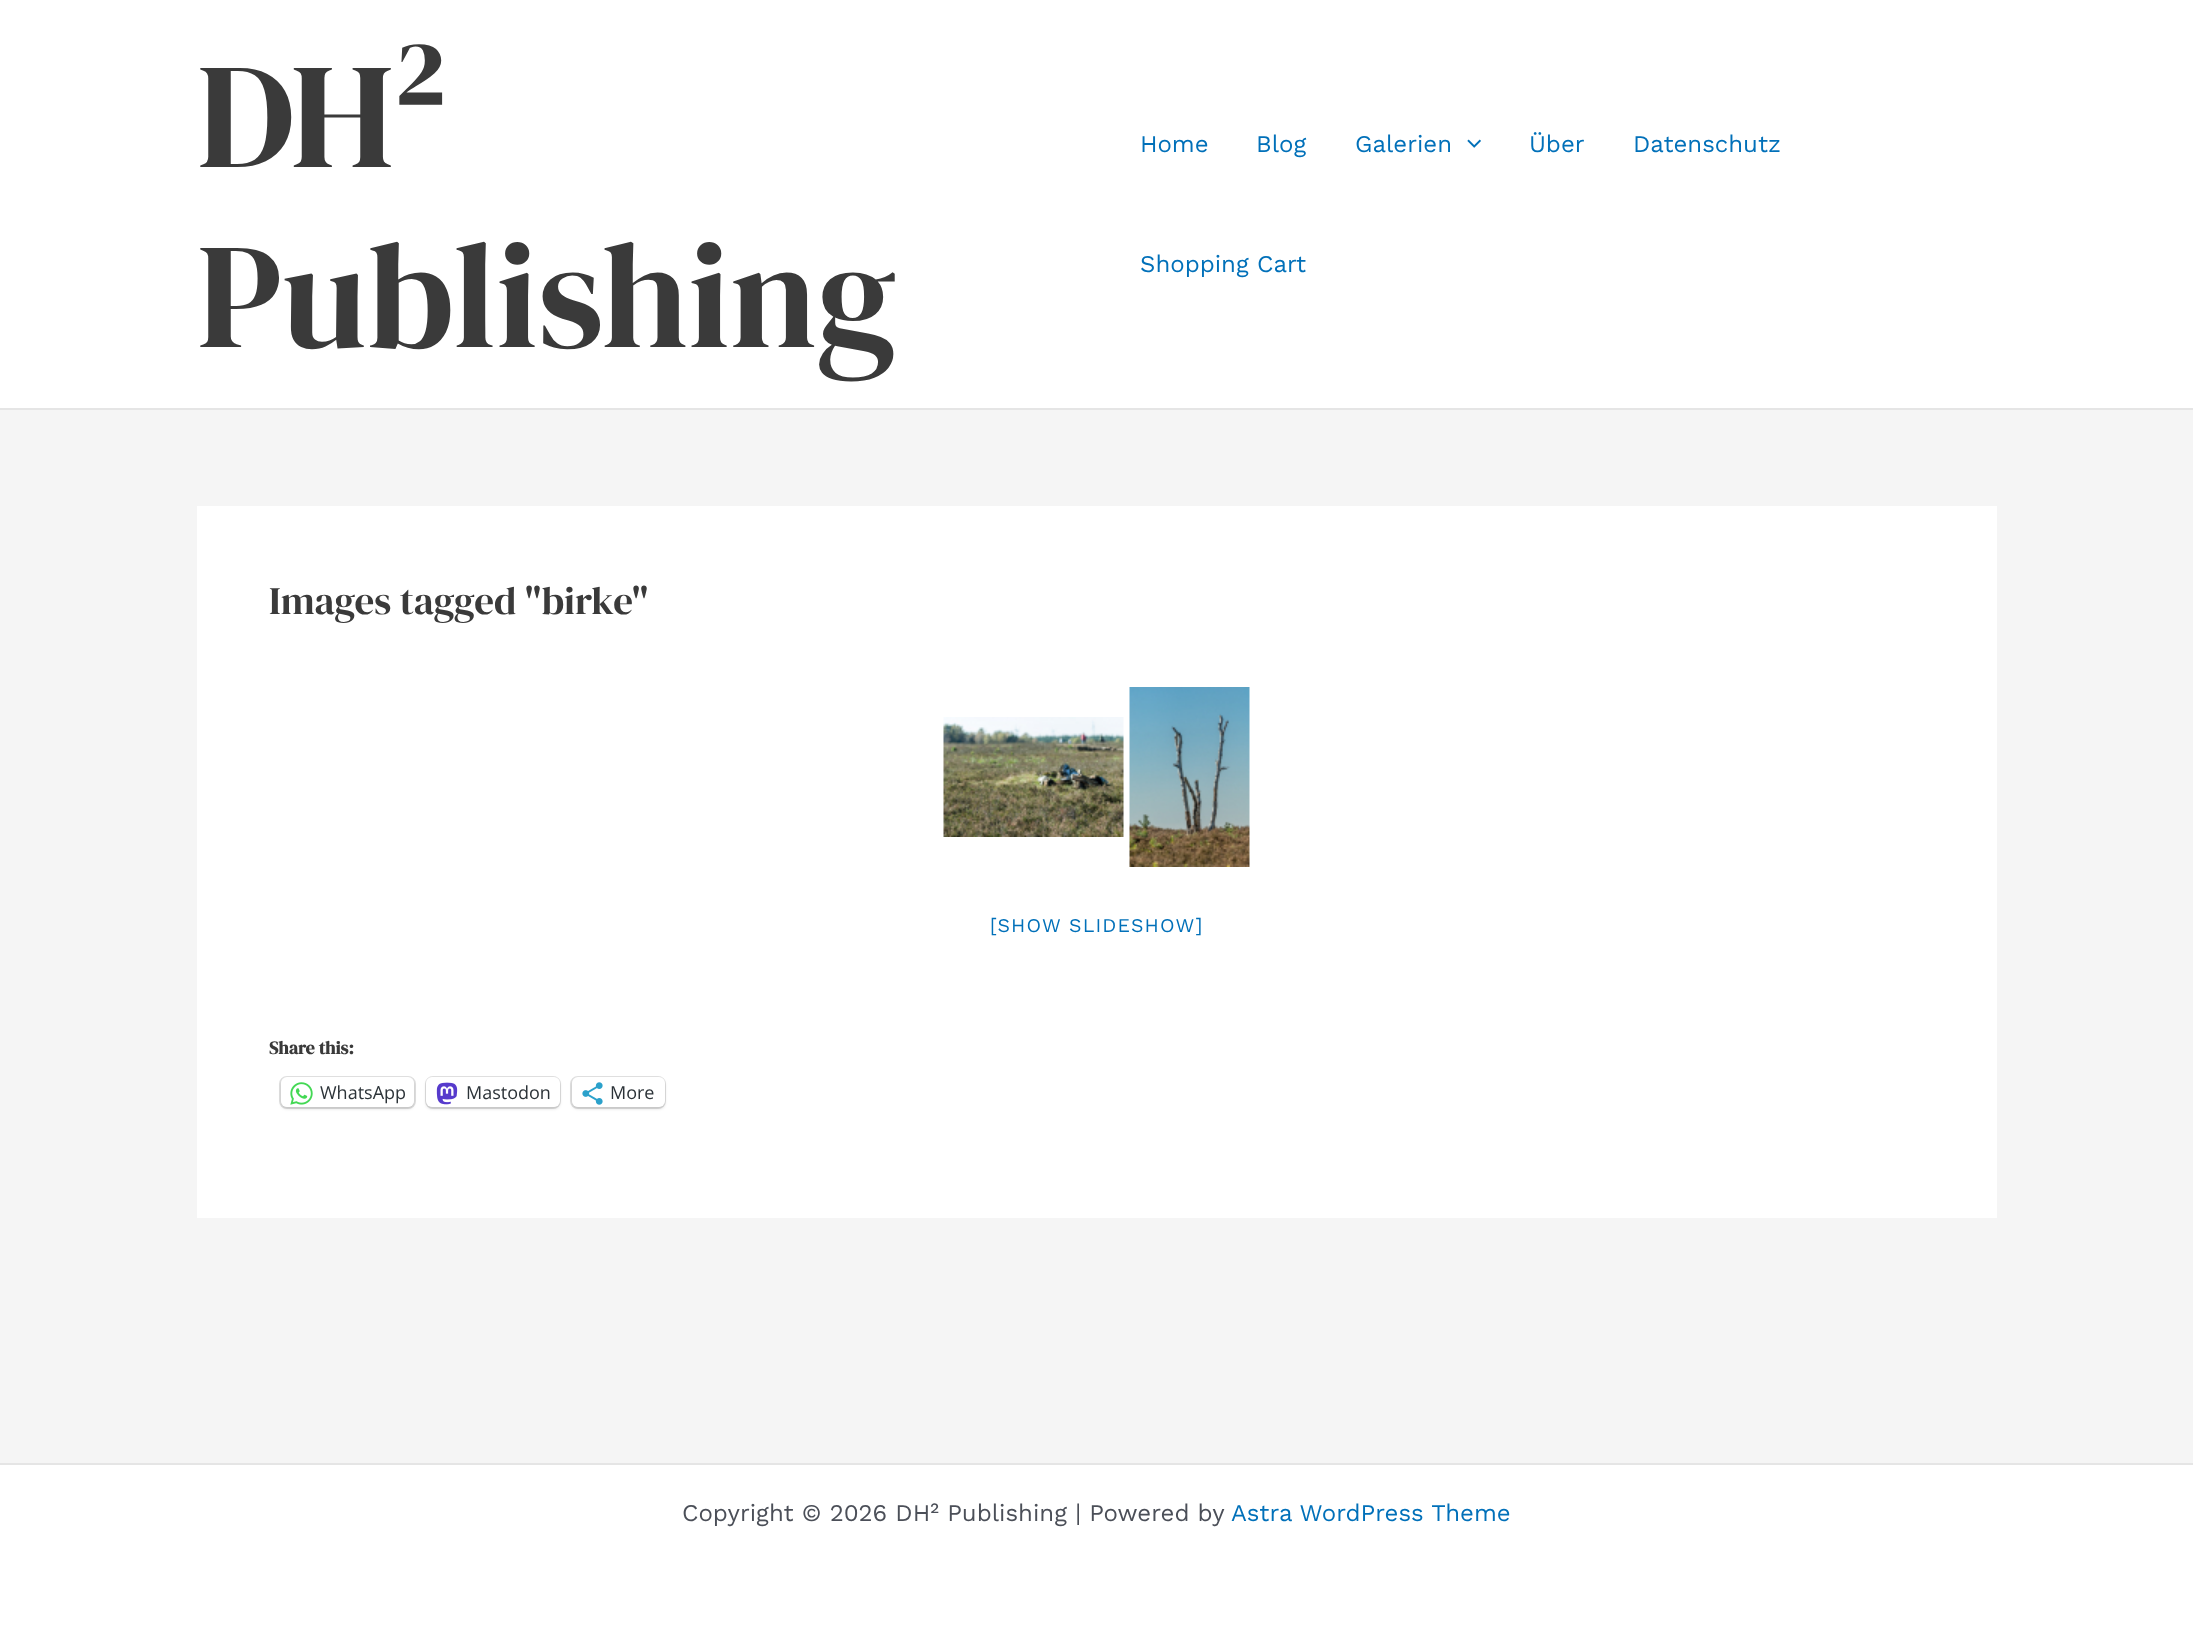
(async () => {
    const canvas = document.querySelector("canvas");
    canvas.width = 2193;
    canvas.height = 1644;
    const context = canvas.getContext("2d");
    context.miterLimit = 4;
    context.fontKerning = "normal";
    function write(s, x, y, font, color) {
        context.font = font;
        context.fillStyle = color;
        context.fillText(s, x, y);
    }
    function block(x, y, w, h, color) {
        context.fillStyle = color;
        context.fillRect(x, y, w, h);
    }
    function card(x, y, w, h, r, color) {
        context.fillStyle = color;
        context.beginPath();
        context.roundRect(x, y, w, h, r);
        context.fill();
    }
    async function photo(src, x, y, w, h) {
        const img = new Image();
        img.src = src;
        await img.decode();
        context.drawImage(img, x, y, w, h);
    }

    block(0, 0, 2193, 1644, "rgb(245, 245, 245)");
    block(0, 0, 2193, 408, "rgb(255, 255, 255)");
    block(0, 408, 2193, 2, "rgb(229, 229, 229)");
    write("DH²", 197, 167, "150px DM Serif Display", "rgb(58, 58, 58)");
    write("Publishing", 197, 347, "150px DM Serif Display", "rgb(58, 58, 58)");
    write("Home", 1140, 152, "24px Work Sans", "rgb(1, 112, 185)");
    write("Blog", 1256, 152, "24px Work Sans", "rgb(1, 112, 185)");
    write("Galerien", 1355, 152, "24px Work Sans", "rgb(1, 112, 185)");
    await photo("media/1.png", 1467, 139, 14, 9);
    write("Über", 1529, 152, "24px Work Sans", "rgb(1, 112, 185)");
    write("Datenschutz", 1633, 152, "24px Work Sans", "rgb(1, 112, 185)");
    write("Shopping Cart", 1140, 272, "24px Work Sans", "rgb(1, 112, 185)");
    block(197, 506, 1800, 712, "rgb(255, 255, 255)");
    write("Images tagged \"birke\"", 269, 614, "39px DM Serif Display", "rgb(58, 58, 58)");
    await photo("media/2.png", 943, 717, 181, 120);
    await photo("media/3.png", 1129, 687, 121, 180);
    context.letterSpacing = "1.1px";
    write("[SHOW SLIDESHOW]", 990, 932, "19.5px Work Sans", "rgb(1, 112, 185)");
    context.letterSpacing = "0px";
    write("Share this:", 269, 1054, "bold 18px DM Serif Display", "rgb(58, 58, 58)");
    context.beginPath();
    context.roundRect(280, 1077, 135, 31, 7);
    context.strokeStyle = "rgb(224, 224, 224)";
    context.lineWidth = 2;
    context.stroke();
    context.fillStyle = "rgba(0, 0, 0, 0.12)";
    context.filter = "blur(1.5px)";
    context.beginPath();
    context.roundRect(281, 1079, 133, 30, 6);
    context.fill();
    context.filter = "none";
    card(281, 1077, 133, 30, 6, "rgb(255, 255, 255)");
    await photo("media/4.png", 290, 1082, 23, 23);
    write("WhatsApp", 320, 1099, "18px Open Sans", "rgb(44, 51, 56)");
    context.beginPath();
    context.roundRect(426, 1077, 134, 31, 7);
    context.stroke();
    context.fillStyle = "rgba(0, 0, 0, 0.12)";
    context.filter = "blur(1.5px)";
    context.beginPath();
    context.roundRect(426, 1079, 134, 30, 6);
    context.fill();
    context.filter = "none";
    card(426, 1077, 134, 30, 6, "rgb(255, 255, 255)");
    await photo("media/5.png", 436, 1082, 22, 23);
    write("Mastodon", 466, 1099, "18px Open Sans", "rgb(44, 51, 56)");
    context.beginPath();
    context.roundRect(571, 1077, 94, 31, 7);
    context.stroke();
    context.fillStyle = "rgba(0, 0, 0, 0.12)";
    context.filter = "blur(1.5px)";
    context.beginPath();
    context.roundRect(572, 1079, 93, 30, 6);
    context.fill();
    context.filter = "none";
    card(572, 1077, 93, 30, 6, "rgb(255, 255, 255)");
    await photo("media/6.png", 582, 1082, 21, 23);
    write("More", 610, 1099, "18px Open Sans", "rgb(44, 51, 56)");
    block(0, 1465, 2193, 179, "rgb(255, 255, 255)");
    block(0, 1463, 2193, 2, "rgb(229, 229, 229)");
    write("Copyright © 2026 DH² Publishing | Powered by", 682, 1521, "24px Work Sans", "rgb(75, 79, 88)");
    write("Astra WordPress Theme", 1231, 1521, "24px Work Sans", "rgb(1, 112, 185)");
})();
